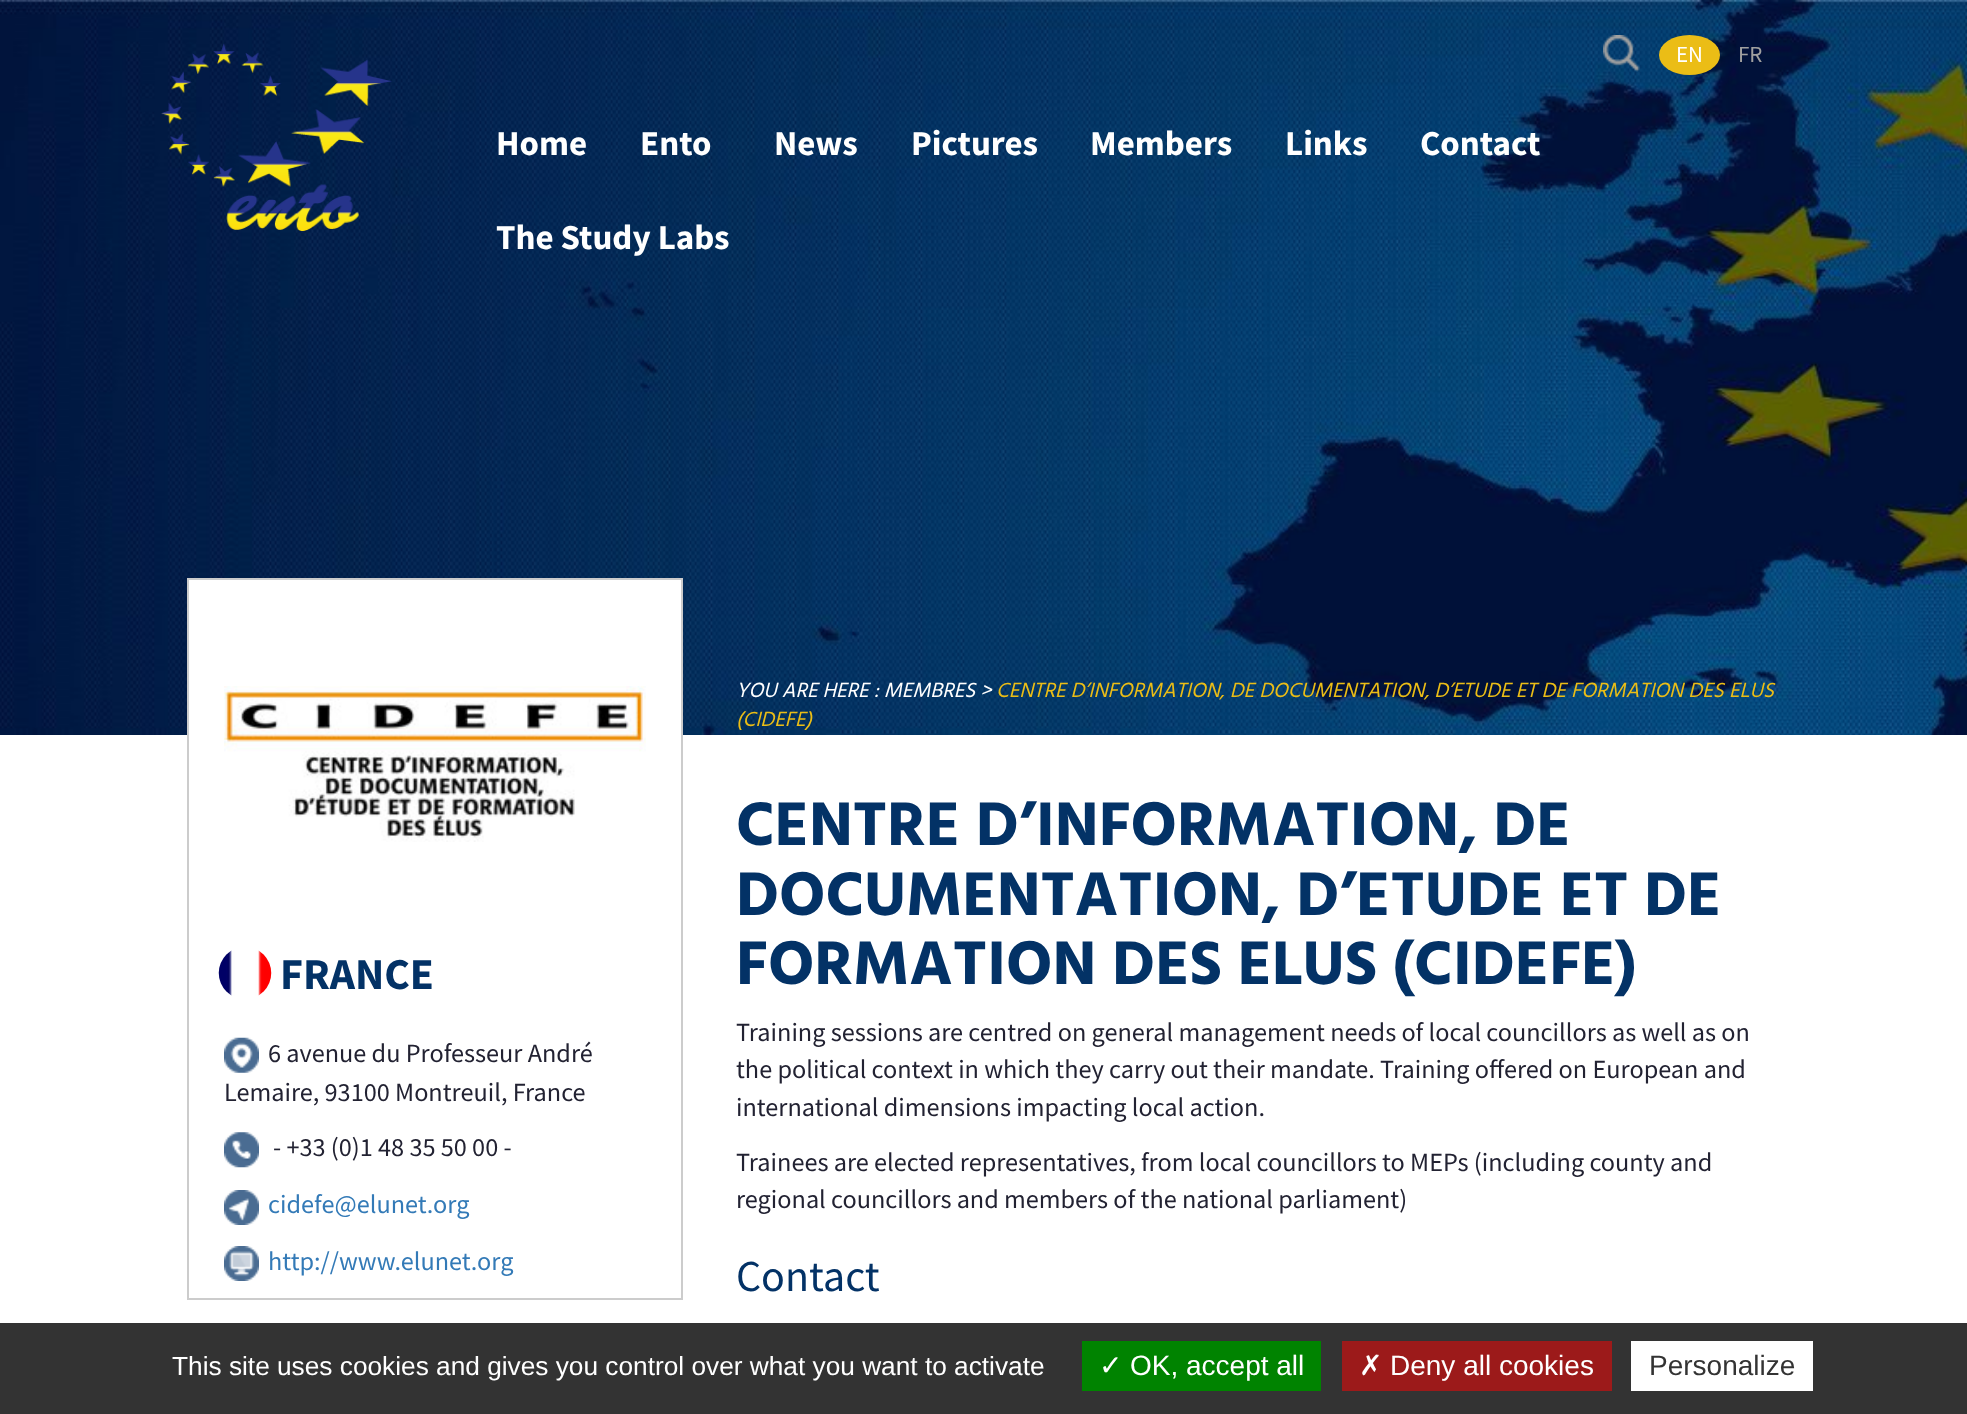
(async () => {
    const canvas = document.querySelector("canvas");
    canvas.width = 1967;
    canvas.height = 1414;
    const context = canvas.getContext("2d");
    context.miterLimit = 4;
    context.fontKerning = "normal";
    function write(s, x, y, font, color) {
        context.font = font;
        context.fillStyle = color;
        context.fillText(s, x, y);
    }
    function block(x, y, w, h, color) {
        context.fillStyle = color;
        context.fillRect(x, y, w, h);
    }
    async function photo(src, x, y, w, h) {
        const img = new Image();
        img.src = src;
        await img.decode();
        context.drawImage(img, x, y, w, h);
    }

    block(0, 0, 1967, 1414, "rgb(255, 255, 255)");
    await photo("media/3.png", 0, 0, 1967, 735);
    await photo("media/1.png", 161, 43, 231, 188);
    await photo("media/2.png", 1603, 35, 37, 37);
    context.fillStyle = "rgb(235, 189, 22)";
    context.beginPath();
    context.ellipse(1689.5, 55, 30.5, 20, 0, 0, Math.PI * 2);
    context.fill();
    write("EN", 1676, 62, "23px Source Sans Pro", "rgb(255, 255, 255)");
    write("FR", 1738, 62, "23px Source Sans Pro", "rgb(160, 160, 160)");
    write("Home", 496, 155, "bold 35px Source Sans Pro", "rgb(255, 255, 255)");
    write("Ento", 640, 155, "bold 35px Source Sans Pro", "rgb(255, 255, 255)");
    write("News", 774, 155, "bold 35px Source Sans Pro", "rgb(255, 255, 255)");
    write("Pictures", 911, 155, "bold 35px Source Sans Pro", "rgb(255, 255, 255)");
    write("Members", 1090, 155, "bold 35px Source Sans Pro", "rgb(255, 255, 255)");
    write("Links", 1285, 155, "bold 35px Source Sans Pro", "rgb(255, 255, 255)");
    write("Contact", 1420, 155, "bold 35px Source Sans Pro", "rgb(255, 255, 255)");
    write("The Study Labs", 496, 249, "bold 35px Source Sans Pro", "rgb(255, 255, 255)");
    write("YOU ARE HERE : MEMBRES >", 736, 697, "italic 21px Hind Vadodara", "rgb(255, 255, 255)");
    write("CENTRE D’INFORMATION, DE DOCUMENTATION, D’ETUDE ET DE FORMATION DES ELUS", 996, 697, "italic 21px Hind Vadodara", "rgb(235, 189, 22)");
    write("(CIDEFE)", 736, 726, "italic 21px Hind Vadodara", "rgb(235, 189, 22)");
    block(189, 580, 492, 155, "rgb(255, 255, 255)");
    context.strokeStyle = "rgb(204, 204, 204)";
    context.lineWidth = 2;
    context.strokeRect(188, 579, 494, 720);
    await photo("media/4.png", 224, 686, 422, 156);
    await photo("media/5.png", 218, 950, 54, 46);
    write("FRANCE", 280, 989, "bold 44px Source Sans Pro", "rgb(3, 50, 102)");
    await photo("media/6.png", 224, 1037, 35, 36);
    write("6 avenue du Professeur André", 268, 1062, "26.25px Source Sans Pro", "rgb(34, 34, 50)");
    write("Lemaire, 93100 Montreuil, France", 224, 1101, "26.25px Source Sans Pro", "rgb(34, 34, 50)");
    await photo("media/7.png", 224, 1132, 35, 36);
    write("- +33 (0)1 48 35 50 00 -", 273, 1156, "26.25px Source Sans Pro", "rgb(34, 34, 50)");
    await photo("media/8.png", 224, 1190, 35, 35);
    write("cidefe@elunet.org", 268, 1213, "26.25px Source Sans Pro", "rgb(51, 122, 183)");
    await photo("media/9.png", 224, 1246, 35, 35);
    write("http://www.elunet.org", 268, 1270, "26.25px Source Sans Pro", "rgb(51, 122, 183)");
    write("CENTRE D’INFORMATION, DE", 736, 845, "bold 63px Hind Vadodara", "rgb(3, 50, 102)");
    write("DOCUMENTATION, D’ETUDE ET DE", 736, 915, "bold 63px Hind Vadodara", "rgb(3, 50, 102)");
    write("FORMATION DES ELUS (CIDEFE)", 736, 984, "bold 63px Hind Vadodara", "rgb(3, 50, 102)");
    write("Training sessions are centred on general management needs of local councillors as well as on", 736, 1041, "26.25px Source Sans Pro", "rgb(34, 34, 50)");
    write("the political context in which they carry out their mandate. Training offered on European and", 736, 1078, "26.25px Source Sans Pro", "rgb(34, 34, 50)");
    write("international dimensions impacting local action.", 736, 1116, "26.25px Source Sans Pro", "rgb(34, 34, 50)");
    write("Trainees are elected representatives, from local councillors to MEPs (including county and", 736, 1171, "26.25px Source Sans Pro", "rgb(34, 34, 50)");
    write("regional councillors and members of the national parliament)", 736, 1208, "26.25px Source Sans Pro", "rgb(34, 34, 50)");
    write("Contact", 736, 1291, "44px Source Sans Pro", "rgb(3, 50, 102)");
    block(0, 1323, 1967, 91, "rgb(51, 51, 51)");
    write("This site uses cookies and gives you control over what you want to activate", 172, 1375, "26.25px Liberation Sans", "rgb(255, 255, 255)");
    block(1082, 1341, 239, 50, "rgb(0, 131, 0)");
    write("✓", 1099, 1375, "28px DejaVu Sans", "rgb(255, 255, 255)");
    write("OK, accept all", 1130, 1375, "28px Liberation Sans", "rgb(255, 255, 255)");
    block(1342, 1341, 270, 50, "rgb(156, 26, 26)");
    write("✗", 1359, 1375, "28px DejaVu Sans", "rgb(255, 255, 255)");
    write("Deny all cookies", 1390, 1375, "28px Liberation Sans", "rgb(255, 255, 255)");
    block(1631, 1341, 182, 50, "rgb(255, 255, 255)");
    write("Personalize", 1649, 1375, "28px Liberation Sans", "rgb(51, 51, 51)");
})();
